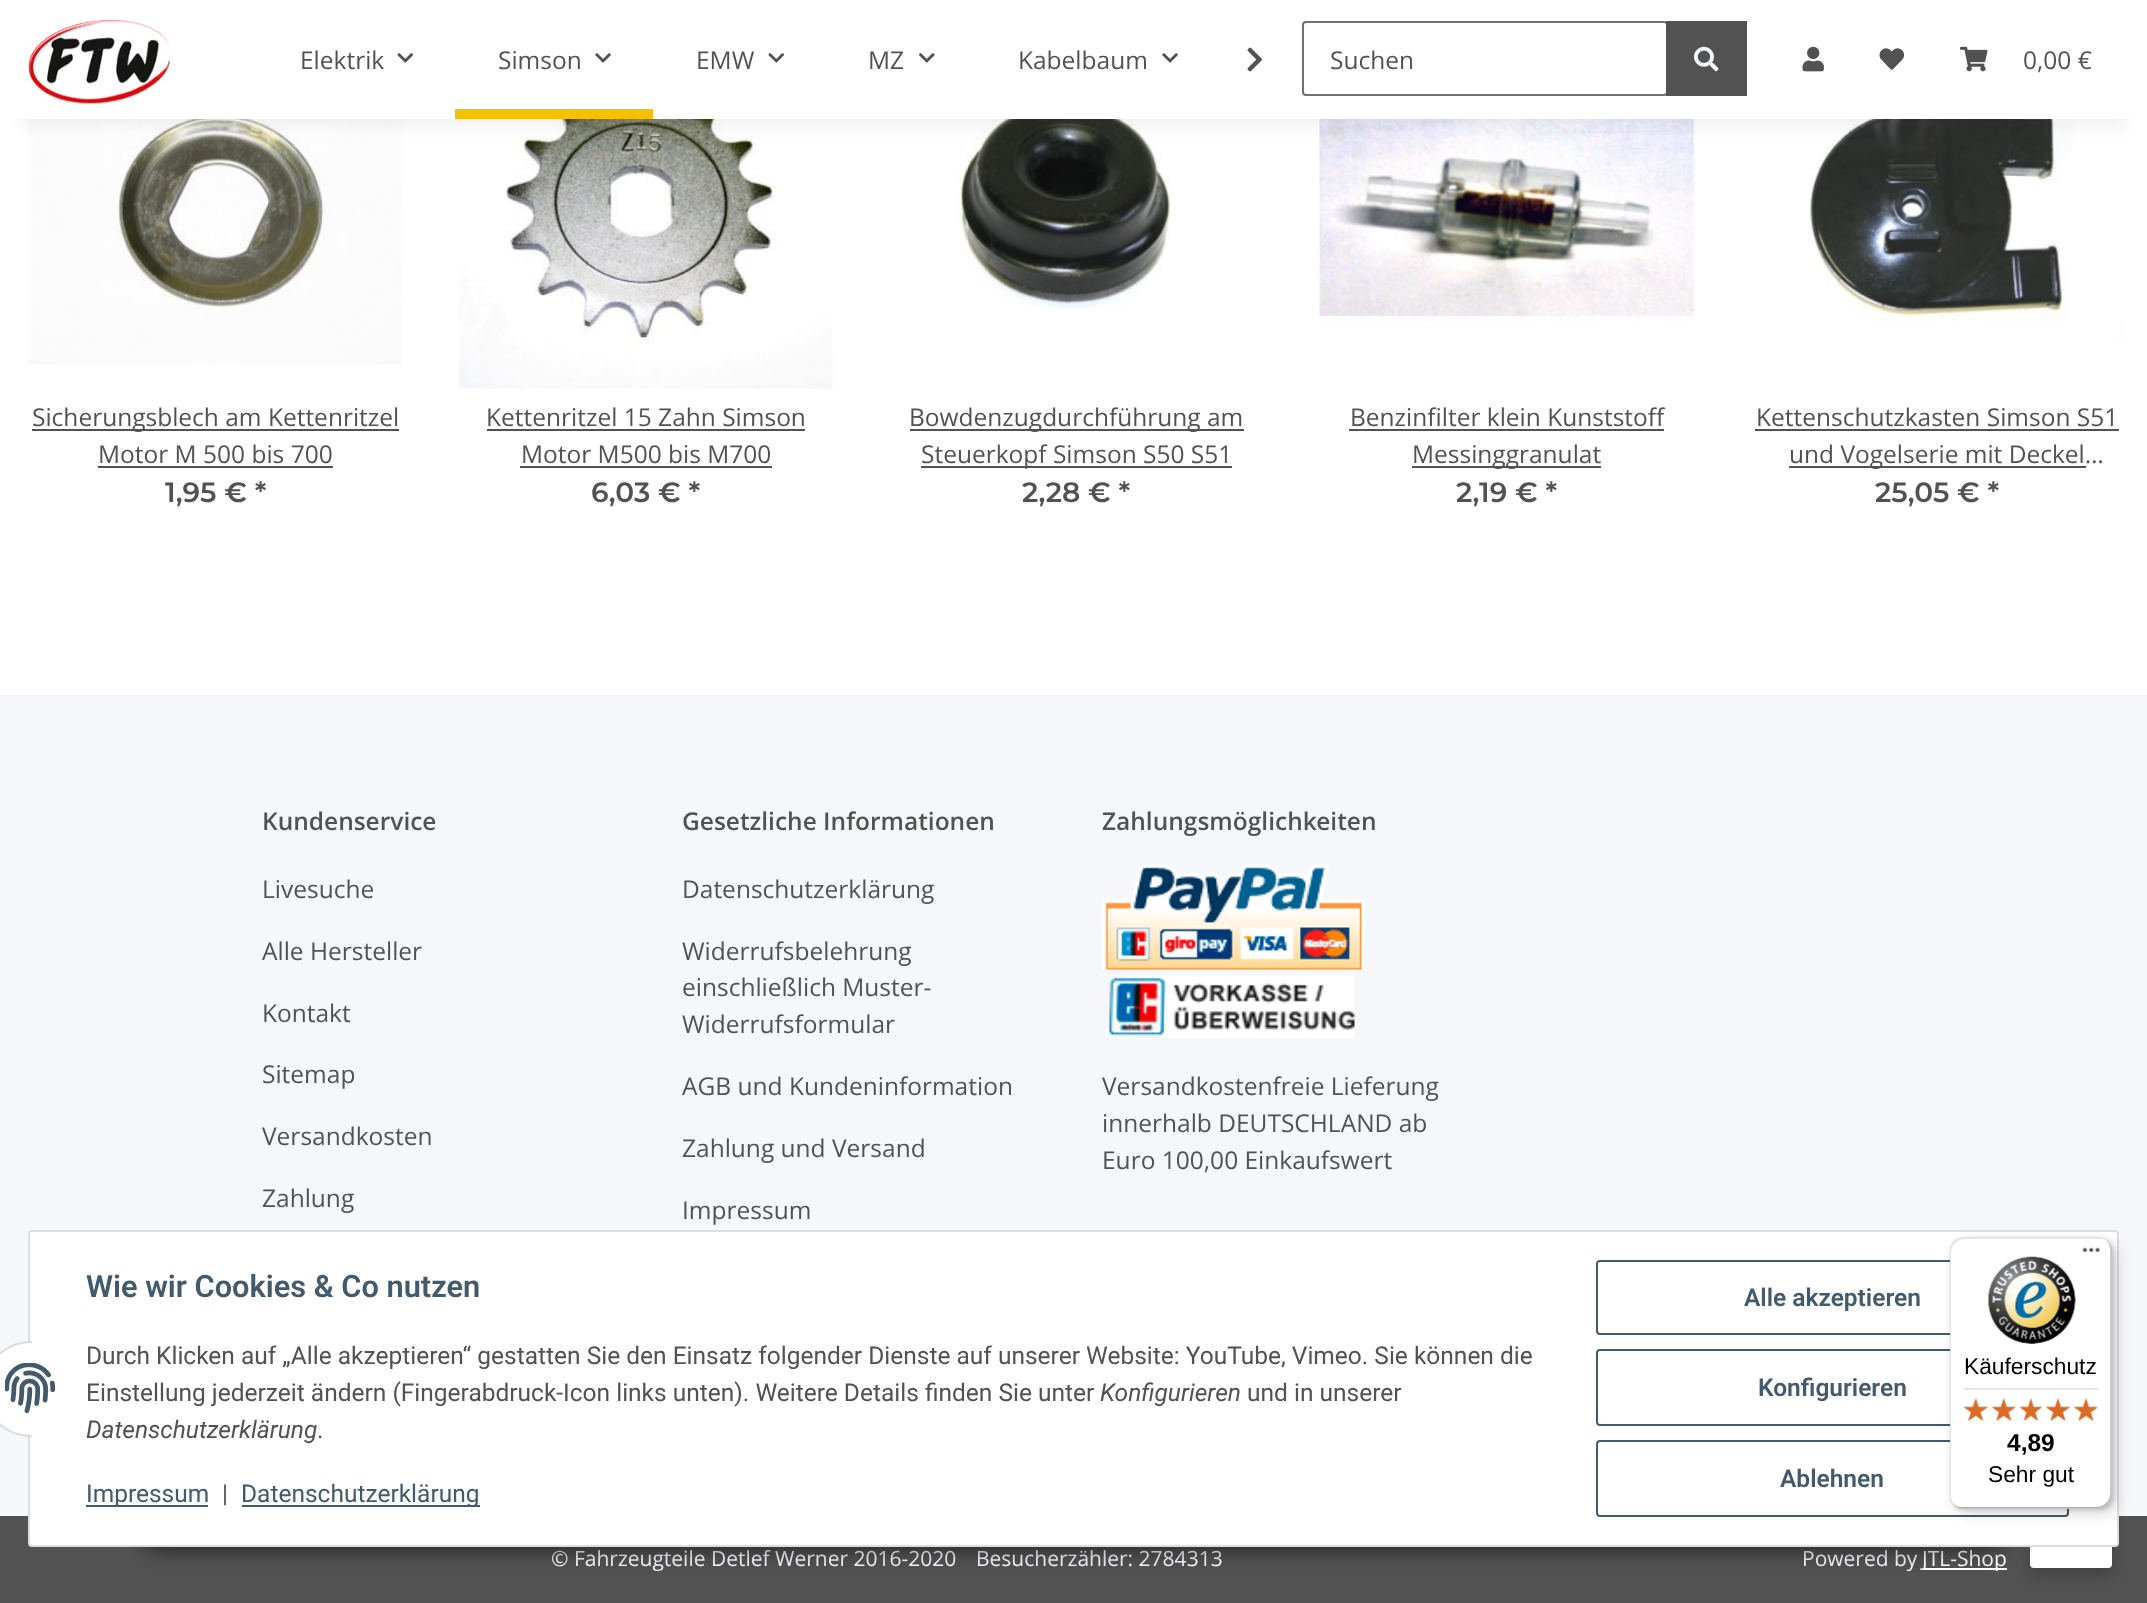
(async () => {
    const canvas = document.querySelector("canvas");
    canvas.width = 2147;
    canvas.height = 1603;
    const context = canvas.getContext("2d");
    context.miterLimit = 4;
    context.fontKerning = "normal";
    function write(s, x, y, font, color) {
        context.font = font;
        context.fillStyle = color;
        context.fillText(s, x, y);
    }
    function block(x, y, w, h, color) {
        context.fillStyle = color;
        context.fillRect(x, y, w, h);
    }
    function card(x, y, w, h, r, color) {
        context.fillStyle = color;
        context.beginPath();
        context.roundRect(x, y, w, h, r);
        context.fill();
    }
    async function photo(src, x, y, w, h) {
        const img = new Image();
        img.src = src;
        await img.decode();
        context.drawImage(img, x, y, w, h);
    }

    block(0, 0, 2147, 1603, "rgb(245, 247, 250)");
    block(0, 119, 2147, 576, "rgb(255, 255, 255)");
    await photo("media/10.png", 28, 119, 374, 246);
    await photo("media/11.png", 459, 119, 374, 270);
    await photo("media/12.png", 956, 119, 215, 191);
    await photo("media/13.png", 1319, 119, 376, 205);
    await photo("media/14.png", 1808, 119, 317, 223);
    context.fillStyle = "rgba(0, 0, 0, 0.06)";
    context.filter = "blur(8px)";
    context.beginPath();
    context.rect(21, 49, 2105, 77);
    context.fill();
    context.filter = "none";
    block(0, 0, 2147, 119, "rgb(255, 255, 255)");
    await photo("media/1.png", 28, 19, 145, 85);
    write("Elektrik", 300, 69, "24.5px Open Sans", "rgb(82, 82, 82)");
    await photo("media/2.png", 397, 53, 17, 10);
    write("Simson", 498, 69, "24.5px Open Sans", "rgb(82, 82, 82)");
    await photo("media/3.png", 595, 53, 16, 10);
    block(455, 109, 198, 10, "rgb(248, 191, 0)");
    write("EMW", 696, 69, "24.5px Open Sans", "rgb(82, 82, 82)");
    await photo("media/2.png", 768, 53, 17, 10);
    write("MZ", 868, 69, "24.5px Open Sans", "rgb(82, 82, 82)");
    await photo("media/4.png", 919, 53, 16, 10);
    write("Kabelbaum", 1018, 69, "24.5px Open Sans", "rgb(82, 82, 82)");
    await photo("media/3.png", 1162, 53, 16, 10);
    await photo("media/5.png", 1247, 47, 15, 25);
    context.beginPath();
    context.roundRect(1303, 22, 364, 73, 3);
    context.strokeStyle = "rgb(112, 112, 112)";
    context.lineWidth = 2;
    context.stroke();
    write("Suchen", 1330, 69, "24.5px Open Sans", "rgb(82, 82, 82)");
    block(1666, 21, 81, 75, "rgb(82, 82, 82)");
    await photo("media/6.png", 1694, 46, 25, 26);
    await photo("media/7.png", 1802, 46, 22, 26);
    await photo("media/8.png", 1879, 48, 25, 22);
    await photo("media/9.png", 1960, 46, 28, 26);
    write("0,00 €", 2023, 69, "24.5px Open Sans", "rgb(82, 82, 82)");
    block(32, 429, 367, 2, "rgb(82, 82, 82)");
    write("Sicherungsblech am Kettenritzel", 32, 426, "24.5px Open Sans", "rgb(82, 82, 82)");
    write("Motor M 500 bis 700", 98, 463, "24.5px Open Sans", "rgb(82, 82, 82)");
    block(98, 466, 235, 2, "rgb(82, 82, 82)");
    write("1,95 € *", 165, 502, "600 28px Montserrat", "rgb(82, 82, 82)");
    write("Kettenritzel 15 Zahn Simson", 486, 426, "24.5px Open Sans", "rgb(82, 82, 82)");
    block(487, 429, 318, 2, "rgb(82, 82, 82)");
    write("Motor M500 bis M700", 521, 463, "24.5px Open Sans", "rgb(82, 82, 82)");
    block(520, 466, 252, 2, "rgb(82, 82, 82)");
    write("6,03 € *", 591, 502, "600 28px Montserrat", "rgb(82, 82, 82)");
    block(910, 429, 334, 2, "rgb(82, 82, 82)");
    write("Bowdenzugdurchführung am", 909, 426, "24.5px Open Sans", "rgb(82, 82, 82)");
    block(921, 466, 311, 2, "rgb(82, 82, 82)");
    write("Steuerkopf Simson S50 S51", 921, 463, "24.5px Open Sans", "rgb(82, 82, 82)");
    write("2,28 € *", 1022, 502, "600 28px Montserrat", "rgb(82, 82, 82)");
    write("Benzinfilter klein Kunststoff", 1350, 426, "24.5px Open Sans", "rgb(82, 82, 82)");
    block(1349, 429, 315, 2, "rgb(82, 82, 82)");
    block(1412, 466, 189, 2, "rgb(82, 82, 82)");
    write("Messinggranulat", 1412, 463, "24.5px Open Sans", "rgb(82, 82, 82)");
    write("2,19 € *", 1456, 502, "600 28px Montserrat", "rgb(82, 82, 82)");
    write("Kettenschutzkasten Simson S51", 1756, 426, "24.5px Open Sans", "rgb(82, 82, 82)");
    block(1755, 429, 364, 2, "rgb(82, 82, 82)");
    block(1789, 466, 297, 2, "rgb(82, 82, 82)");
    write("und Vogelserie mit Deckel…", 1789, 463, "24.5px Open Sans", "rgb(82, 82, 82)");
    write("25,05 € *", 1875, 502, "600 28px Montserrat", "rgb(82, 82, 82)");
    write("Kundenservice", 262, 830, "600 24.5px Open Sans", "rgb(82, 82, 82)");
    write("Livesuche", 262, 898, "24.5px Open Sans", "rgb(82, 82, 82)");
    write("Alle Hersteller", 262, 960, "24.5px Open Sans", "rgb(82, 82, 82)");
    write("Kontakt", 262, 1022, "24.5px Open Sans", "rgb(82, 82, 82)");
    write("Sitemap", 262, 1083, "24.5px Open Sans", "rgb(82, 82, 82)");
    write("Versandkosten", 262, 1145, "24.5px Open Sans", "rgb(82, 82, 82)");
    write("Zahlung", 262, 1207, "24.5px Open Sans", "rgb(82, 82, 82)");
    write("Gesetzliche Informationen", 682, 830, "600 24.5px Open Sans", "rgb(82, 82, 82)");
    write("Datenschutzerklärung", 682, 898, "24.5px Open Sans", "rgb(82, 82, 82)");
    write("Widerrufsbelehrung", 682, 960, "24.5px Open Sans", "rgb(82, 82, 82)");
    write("einschließlich Muster-", 682, 996, "24.5px Open Sans", "rgb(82, 82, 82)");
    write("Widerrufsformular", 682, 1033, "24.5px Open Sans", "rgb(82, 82, 82)");
    write("AGB und Kundeninformation", 682, 1095, "24.5px Open Sans", "rgb(82, 82, 82)");
    write("Zahlung und Versand", 682, 1157, "24.5px Open Sans", "rgb(82, 82, 82)");
    write("Impressum", 682, 1219, "24.5px Open Sans", "rgb(82, 82, 82)");
    write("Zahlungsmöglichkeiten", 1102, 830, "600 24.5px Open Sans", "rgb(82, 82, 82)");
    await photo("media/15.png", 1102, 864, 263, 174);
    write("Versandkostenfreie Lieferung", 1102, 1095, "24.5px Open Sans", "rgb(82, 82, 82)");
    write("innerhalb DEUTSCHLAND ab", 1102, 1132, "24.5px Open Sans", "rgb(82, 82, 82)");
    write("Euro 100,00 Einkaufswert", 1102, 1169, "24.5px Open Sans", "rgb(82, 82, 82)");
    block(0, 1516, 2147, 87, "rgb(82, 82, 82)");
    write("© Fahrzeugteile Detlef Werner 2016-2020", 551, 1566, "21px Open Sans", "rgb(245, 247, 250)");
    write("Besucherzähler: 2784313", 976, 1566, "21px Open Sans", "rgb(245, 247, 250)");
    write("Powered by", 1802, 1566, "21px Open Sans", "rgb(245, 247, 250)");
    block(1923, 1568, 84, 2, "rgb(255, 255, 255)");
    write("JTL-Shop", 1922, 1566, "21px Open Sans", "rgb(255, 255, 255)");
    context.fillStyle = "rgba(0, 0, 0, 0.2)";
    context.filter = "blur(7px)";
    context.beginPath();
    context.roundRect(2030, 1498, 82, 77, 4);
    context.fill();
    context.filter = "none";
    card(2030, 1491, 82, 77, 4, "rgb(255, 255, 255)");
    context.fillStyle = "rgba(0, 0, 0, 0.45)";
    context.filter = "blur(9px)";
    context.beginPath();
    context.roundRect(135, 1496, 1878, 56, 28);
    context.fill();
    context.filter = "none";
    context.fillStyle = "rgb(255, 255, 255)";
    context.beginPath();
    context.roundRect(29, 1231, 2089, 315, 3);
    context.fill();
    context.strokeStyle = "rgb(221, 221, 221)";
    context.stroke();
    context.beginPath();
    context.arc(31, 1389, 47, 0, Math.PI * 2);
    context.fill();
    context.stroke();
    block(32, 1341, 47, 96, "rgb(255, 255, 255)");
    await photo("media/16.png", 5, 1363, 51, 51);
    write("Wie wir Cookies & Co nutzen", 86, 1297, "600 30.75px Roboto", "rgb(67, 90, 107)");
    write("Durch Klicken auf „Alle akzeptieren“ gestatten Sie den Einsatz folgender Dienste auf unserer Website: YouTube, Vimeo. Sie können die", 86, 1364, "24.5px Roboto", "rgb(82, 82, 82)");
    write("Einstellung jederzeit ändern (Fingerabdruck-Icon links unten). Weitere Details finden Sie unter", 86, 1401, "24.5px Roboto", "rgb(82, 82, 82)");
    write("Konfigurieren", 1100, 1401, "italic 24.5px Roboto", "rgb(82, 82, 82)");
    write("und in unserer", 1247, 1401, "24.5px Roboto", "rgb(82, 82, 82)");
    write("Datenschutzerklärung", 86, 1438, "italic 24.5px Roboto", "rgb(82, 82, 82)");
    write(".", 317, 1438, "24.5px Roboto", "rgb(82, 82, 82)");
    block(86, 1505, 122, 2, "rgb(67, 90, 107)");
    write("Impressum", 86, 1502, "24.5px Roboto", "rgb(67, 90, 107)");
    write("|", 222, 1502, "24.5px Roboto", "rgb(82, 82, 82)");
    block(242, 1505, 238, 2, "rgb(67, 90, 107)");
    write("Datenschutzerklärung", 241, 1502, "24.5px Roboto", "rgb(67, 90, 107)");
    context.beginPath();
    context.roundRect(1597, 1261, 471, 73, 3);
    context.strokeStyle = "rgb(67, 90, 107)";
    context.stroke();
    write("Alle akzeptieren", 1744, 1306, "600 24.5px Roboto", "rgb(67, 90, 107)");
    context.beginPath();
    context.roundRect(1597, 1350, 471, 75, 3);
    context.stroke();
    write("Konfigurieren", 1758, 1396, "600 24.5px Roboto", "rgb(67, 90, 107)");
    context.beginPath();
    context.roundRect(1597, 1441, 471, 75, 3);
    context.stroke();
    write("Ablehnen", 1780, 1487, "600 24.5px Roboto", "rgb(67, 90, 107)");
    context.fillStyle = "rgba(0, 0, 0, 0.15)";
    context.filter = "blur(7px)";
    context.beginPath();
    context.roundRect(1955, 1243, 163, 271, 14);
    context.fill();
    context.filter = "none";
    context.filter = "blur(2px)";
    context.beginPath();
    context.roundRect(1951, 1239, 163, 271, 14);
    context.fill();
    context.filter = "none";
    card(1950, 1237, 162, 272, 14, "rgb(255, 255, 255)");
    context.fillStyle = "rgba(0, 0, 0, 0.1)";
    context.beginPath();
    context.moveTo(1965, 1239);
    context.lineTo(2100, 1239);
    context.bezierCurveTo(2103, 1239, 2106, 1240, 2108, 1242);
    context.bezierCurveTo(2106, 1239, 2102, 1237, 2098, 1237);
    context.lineTo(1964, 1237);
    context.bezierCurveTo(1956, 1237, 1950, 1243, 1950, 1251);
    context.lineTo(1950, 1495);
    context.bezierCurveTo(1950, 1500, 1952, 1504, 1956, 1506);
    context.bezierCurveTo(1953, 1504, 1951, 1500, 1951, 1496);
    context.lineTo(1951, 1253);
    context.bezierCurveTo(1951, 1245, 1958, 1239, 1965, 1239);
    context.closePath();
    context.fill();
    context.fillStyle = "rgba(0, 0, 0, 0.2)";
    context.beginPath();
    context.moveTo(1953, 1503);
    context.bezierCurveTo(1955, 1507, 1959, 1509, 1964, 1509);
    context.lineTo(2098, 1509);
    context.bezierCurveTo(2106, 1509, 2112, 1503, 2112, 1495);
    context.lineTo(2112, 1251);
    context.bezierCurveTo(2112, 1245, 2109, 1241, 2104, 1238);
    context.bezierCurveTo(2108, 1241, 2110, 1245, 2110, 1250);
    context.lineTo(2110, 1493);
    context.bezierCurveTo(2110, 1500, 2104, 1507, 2096, 1507);
    context.lineTo(1962, 1507);
    context.bezierCurveTo(1958, 1507, 1955, 1506, 1953, 1503);
    context.closePath();
    context.fill();
    context.fillStyle = "rgba(50, 50, 50, 0.2)";
    context.beginPath();
    context.moveTo(1953, 1503);
    context.bezierCurveTo(1955, 1507, 1959, 1509, 1964, 1509);
    context.lineTo(2098, 1509);
    context.bezierCurveTo(2106, 1509, 2112, 1503, 2112, 1495);
    context.lineTo(2112, 1251);
    context.bezierCurveTo(2112, 1247, 2111, 1244, 2108, 1242);
    context.bezierCurveTo(2110, 1244, 2111, 1247, 2111, 1250);
    context.lineTo(2111, 1493);
    context.bezierCurveTo(2111, 1501, 2105, 1507, 2097, 1507);
    context.lineTo(1962, 1507);
    context.bezierCurveTo(1959, 1507, 1955, 1506, 1953, 1503);
    context.closePath();
    context.fill();
    context.fillStyle = "rgba(255, 255, 255, 0.3)";
    context.beginPath();
    context.moveTo(1953, 1503);
    context.bezierCurveTo(1955, 1507, 1959, 1509, 1964, 1509);
    context.lineTo(2098, 1509);
    context.bezierCurveTo(2106, 1509, 2112, 1503, 2112, 1495);
    context.lineTo(2112, 1251);
    context.bezierCurveTo(2112, 1246, 2110, 1242, 2107, 1240);
    context.bezierCurveTo(2109, 1243, 2111, 1246, 2111, 1250);
    context.lineTo(2111, 1494);
    context.bezierCurveTo(2111, 1501, 2105, 1508, 2097, 1508);
    context.lineTo(1963, 1508);
    context.bezierCurveTo(1959, 1508, 1955, 1506, 1953, 1503);
    context.closePath();
    context.fill();
    await photo("media/17.png", 2082, 1247, 18, 5);
    await photo("media/18.png", 1988, 1256, 88, 88);
    write("Käuferschutz", 1964, 1374, "22.75px Liberation Sans", "rgb(0, 0, 0)");
    block(1964, 1388, 134, 2, "rgb(229, 229, 229)");
    await photo("media/19.png", 1963, 1398, 25, 23);
    await photo("media/20.png", 1992, 1398, 24, 23);
    await photo("media/21.png", 2019, 1399, 23, 22);
    await photo("media/22.png", 2046, 1398, 24, 23);
    await photo("media/23.png", 2074, 1398, 24, 23);
    await photo("media/24.png", 1963, 1398, 25, 23);
    await photo("media/25.png", 1991, 1398, 25, 23);
    await photo("media/26.png", 2019, 1398, 24, 23);
    await photo("media/27.png", 2045, 1398, 25, 23);
    await photo("media/28.png", 2073, 1398, 24, 23);
    write("4,89", 2007, 1451, "bold 24.5px Liberation Sans", "rgb(0, 0, 0)");
    write("Sehr gut", 1988, 1482, "22.75px Liberation Sans", "rgb(0, 0, 0)");
})();
